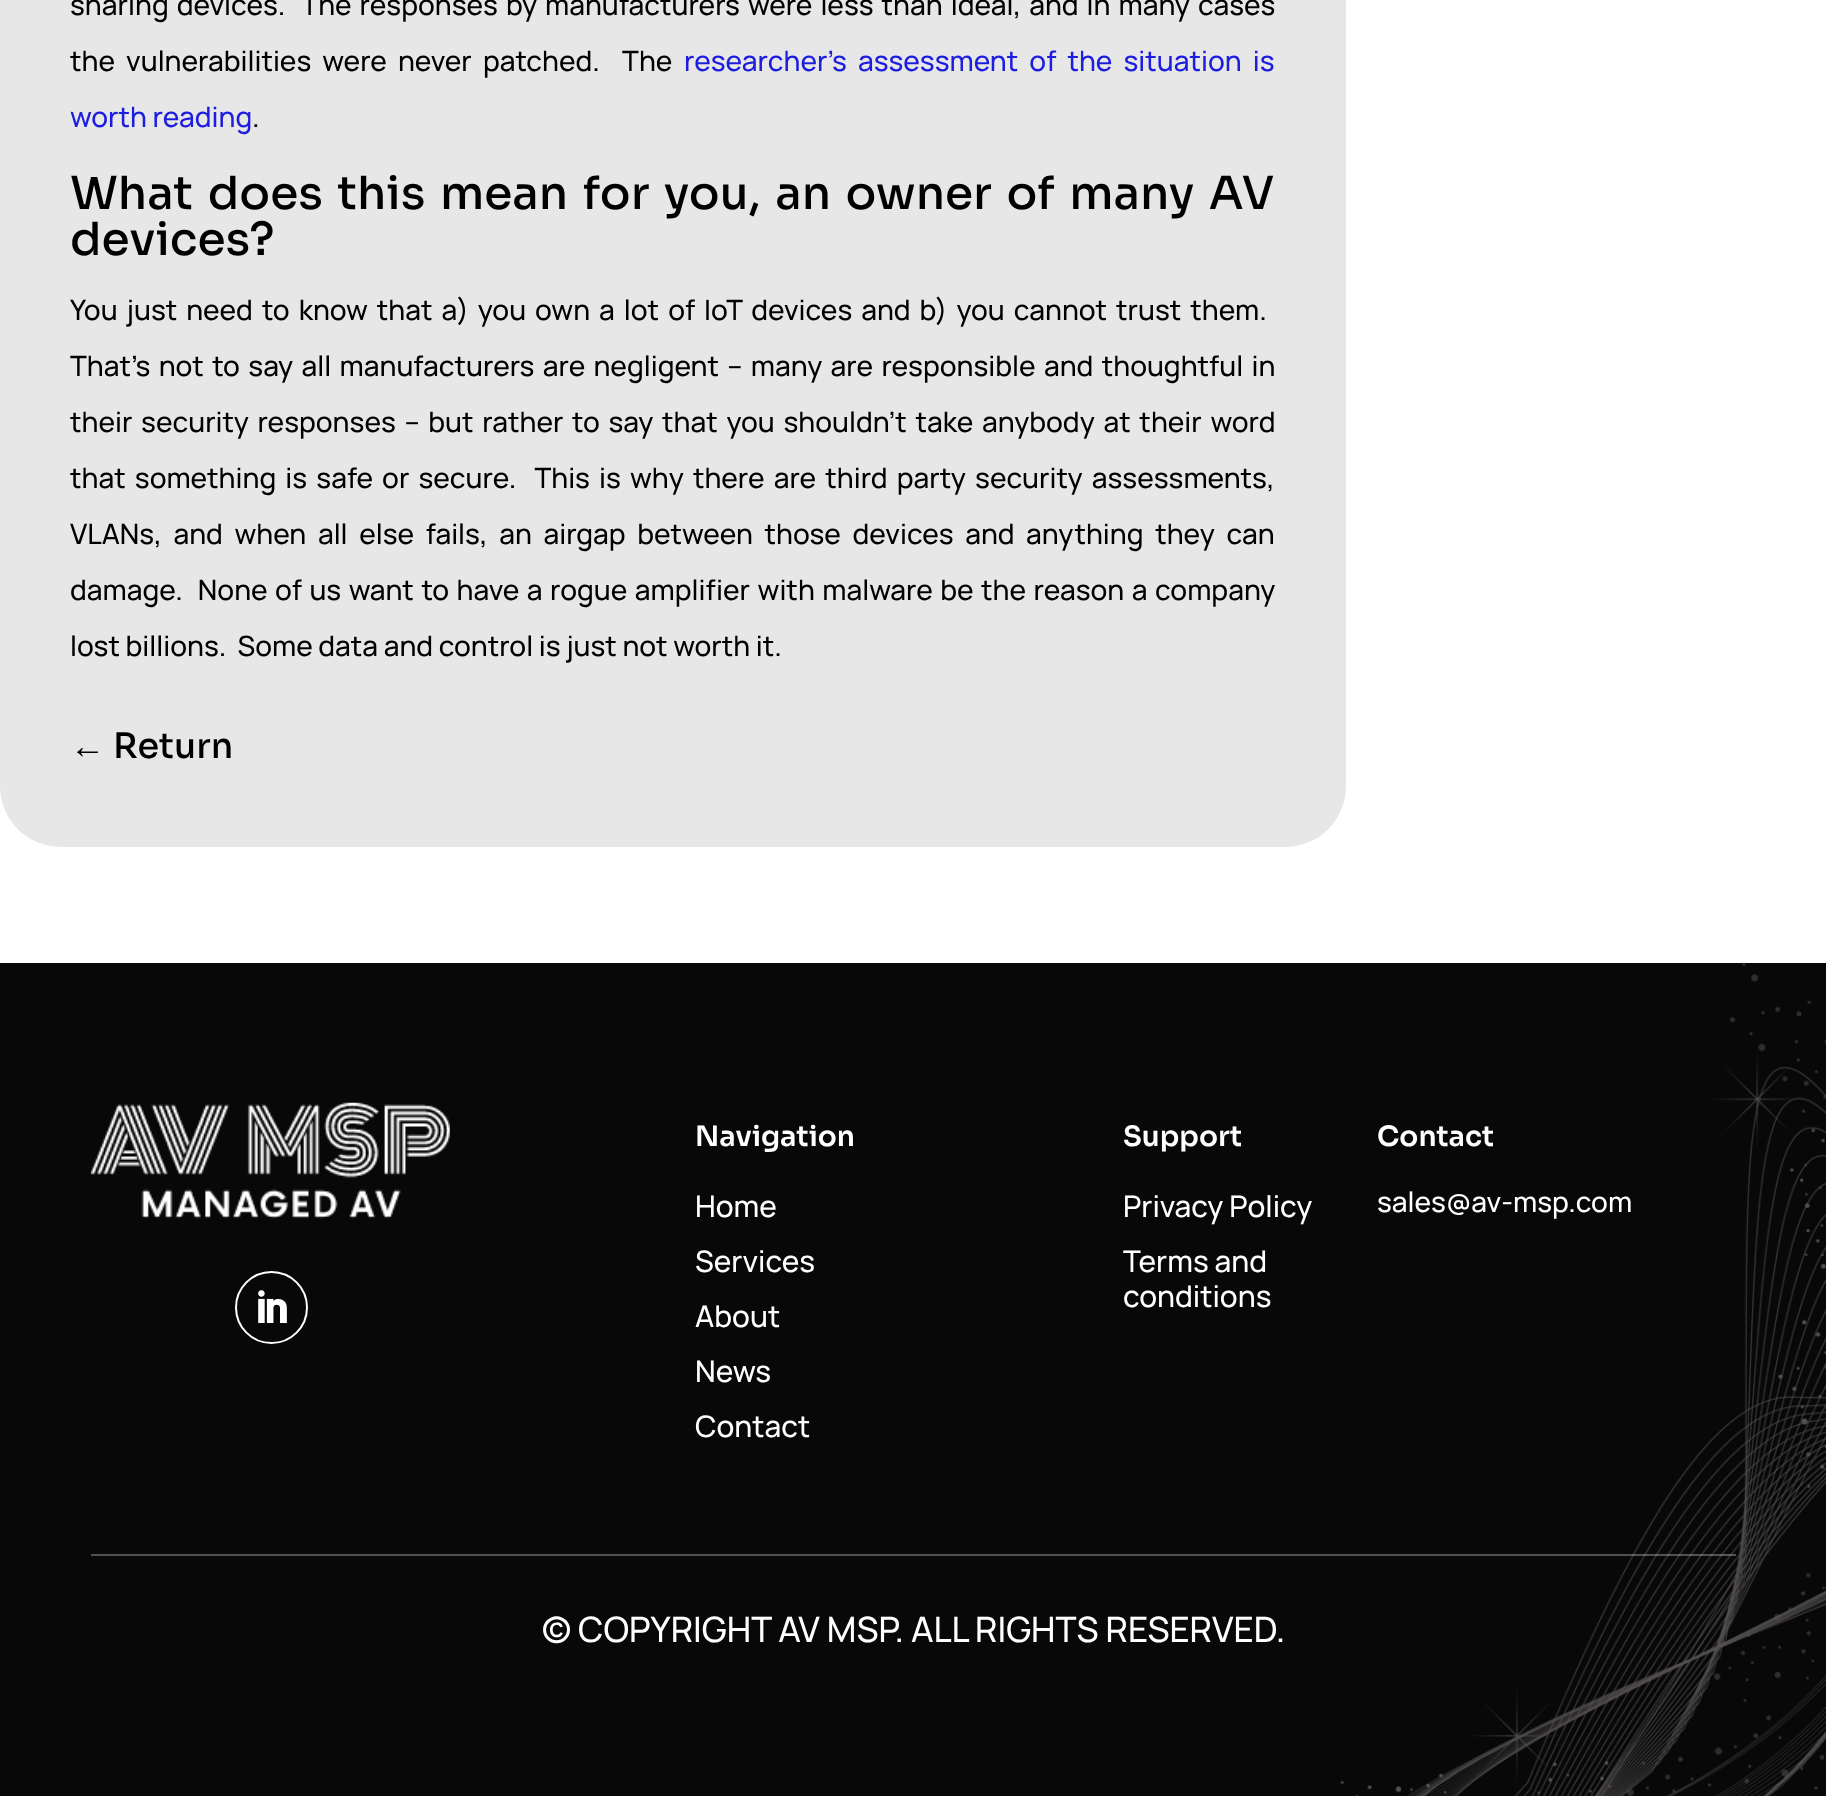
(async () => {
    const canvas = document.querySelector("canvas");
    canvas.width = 1826;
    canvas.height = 1796;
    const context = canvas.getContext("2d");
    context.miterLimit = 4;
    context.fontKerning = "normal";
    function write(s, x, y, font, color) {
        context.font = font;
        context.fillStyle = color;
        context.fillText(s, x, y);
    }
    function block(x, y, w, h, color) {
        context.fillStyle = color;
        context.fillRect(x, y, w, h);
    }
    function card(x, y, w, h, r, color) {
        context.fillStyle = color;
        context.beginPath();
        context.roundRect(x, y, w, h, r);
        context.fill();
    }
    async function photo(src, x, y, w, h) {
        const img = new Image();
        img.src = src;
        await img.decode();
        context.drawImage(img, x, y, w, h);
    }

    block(0, 0, 1826, 1796, "rgb(255, 255, 255)");
    card(0, -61, 1346, 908, 61, "rgb(231, 231, 231)");
    context.wordSpacing = "2.4px";
    write("sharing devices.  The responses by manufacturers were less than ideal, and in many cases", 70, 15, "500 28px Manrope", "rgb(0, 0, 0)");
    context.wordSpacing = "5.5px";
    write("the vulnerabilities were never patched.  The", 70, 71, "500 28px Manrope", "rgb(0, 0, 0)");
    write("researcher’s assessment of the situation is", 684, 71, "500 28px Manrope", "rgb(29, 29, 224)");
    context.wordSpacing = "0px";
    write("worth reading", 70, 127, "500 28px Manrope", "rgb(29, 29, 224)");
    write(".", 252, 127, "500 28px Manrope", "rgb(0, 0, 0)");
    context.wordSpacing = "4.5px";
    write("What does this mean for you, an owner of many AV", 70, 209, "500 45.5px Sora", "rgb(0, 0, 0)");
    context.wordSpacing = "0px";
    write("devices?", 70, 255, "500 45.5px Sora", "rgb(0, 0, 0)");
    context.wordSpacing = "3.4px";
    write("You just need to know that a) you own a lot of IoT devices and b) you cannot trust them.", 70, 320, "500 28px Manrope", "rgb(0, 0, 0)");
    context.wordSpacing = "2.75px";
    write("That’s not to say all manufacturers are negligent – many are responsible and thoughtful in", 70, 376, "500 28px Manrope", "rgb(0, 0, 0)");
    context.wordSpacing = "3.1px";
    write("their security responses – but rather to say that you shouldn’t take anybody at their word", 70, 432, "500 28px Manrope", "rgb(0, 0, 0)");
    context.wordSpacing = "3.5px";
    write("that something is safe or secure.  This is why there are third party security assessments,", 70, 488, "500 28px Manrope", "rgb(0, 0, 0)");
    context.wordSpacing = "6px";
    write("VLANs, and when all else fails, an airgap between those devices and anything they can", 70, 544, "500 28px Manrope", "rgb(0, 0, 0)");
    context.wordSpacing = "1.9px";
    write("damage.  None of us want to have a rogue amplifier with malware be the reason a company", 70, 600, "500 28px Manrope", "rgb(0, 0, 0)");
    context.wordSpacing = "0px";
    write("lost billions.  Some data and control is just not worth it.", 70, 656, "500 28px Manrope", "rgb(0, 0, 0)");
    write("←", 70, 758, "35px Liberation Sans", "rgb(0, 0, 0)");
    write("Return", 113, 758, "500 35px Sora", "rgb(0, 0, 0)");
    block(0, 963, 1826, 833, "rgb(8, 8, 8)");
    await photo("media/1.png", 1340, 962, 486, 834);
    await photo("media/2.png", 91, 1102, 359, 117);
    context.beginPath();
    context.arc(271.5, 1307.5, 35.5, 0, Math.PI * 2);
    context.strokeStyle = "rgb(255, 255, 255)";
    context.lineWidth = 2;
    context.stroke();
    await photo("media/3.png", 258, 1290, 29, 33);
    write("Navigation", 695, 1146, "600 28px Sora", "rgb(255, 255, 255)");
    write("Home", 695, 1217, "500 29.75px Manrope", "rgb(255, 255, 255)");
    write("Services", 695, 1272, "500 29.75px Manrope", "rgb(255, 255, 255)");
    write("About", 695, 1327, "500 29.75px Manrope", "rgb(255, 255, 255)");
    write("News", 695, 1382, "500 29.75px Manrope", "rgb(255, 255, 255)");
    write("Contact", 695, 1437, "500 29.75px Manrope", "rgb(255, 255, 255)");
    write("Support", 1123, 1146, "600 28px Sora", "rgb(255, 255, 255)");
    write("Privacy Policy", 1123, 1217, "500 29.75px Manrope", "rgb(255, 255, 255)");
    write("Terms and", 1123, 1272, "500 29.75px Manrope", "rgb(255, 255, 255)");
    write("conditions", 1123, 1307, "500 29.75px Manrope", "rgb(255, 255, 255)");
    write("Contact", 1377, 1146, "600 28px Sora", "rgb(255, 255, 255)");
    write("sales@av-msp.com", 1377, 1212, "500 28px Manrope", "rgb(255, 255, 255)");
    block(91, 1554, 1645, 2, "rgba(255, 255, 255, 0.3)");
    write("© COPYRIGHT AV MSP. ALL RIGHTS RESERVED.", 542, 1642, "500 35px Manrope", "rgb(255, 255, 255)");
})();
